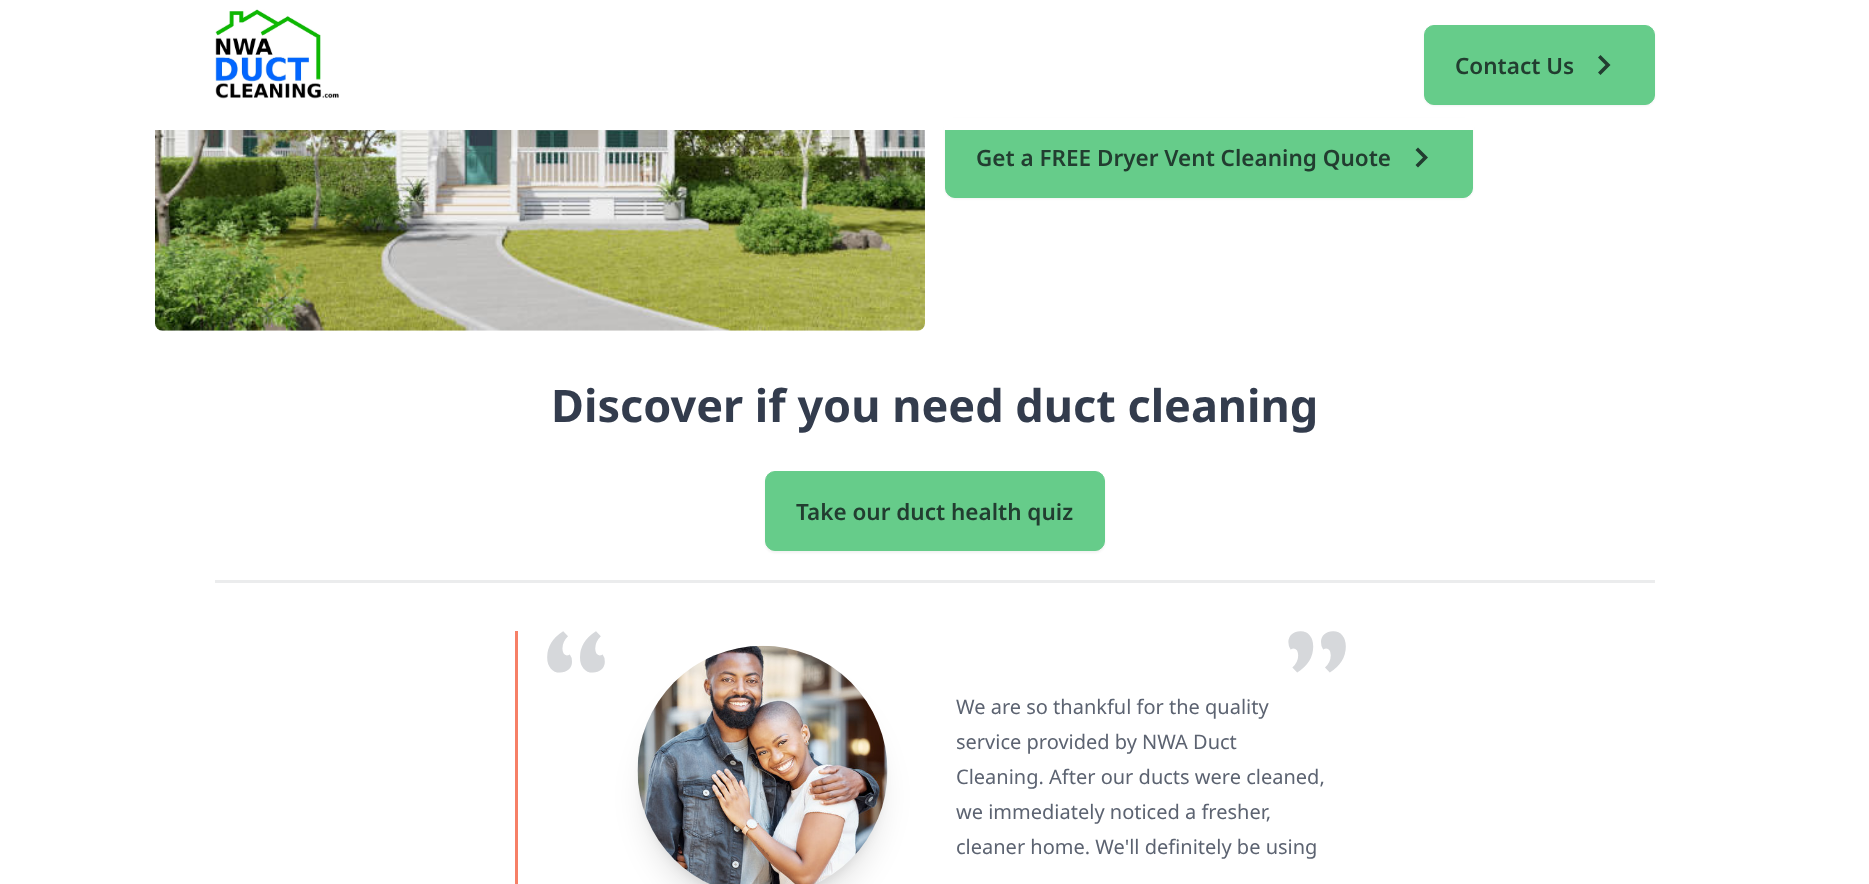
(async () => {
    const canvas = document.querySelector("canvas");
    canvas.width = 1869;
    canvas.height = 884;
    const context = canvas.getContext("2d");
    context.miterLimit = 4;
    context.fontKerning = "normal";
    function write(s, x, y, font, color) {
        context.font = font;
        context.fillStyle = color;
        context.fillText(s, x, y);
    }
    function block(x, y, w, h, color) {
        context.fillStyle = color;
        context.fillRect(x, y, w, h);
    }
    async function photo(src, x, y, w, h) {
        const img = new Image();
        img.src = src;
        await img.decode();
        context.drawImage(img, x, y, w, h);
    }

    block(0, 0, 1869, 884, "rgb(255, 255, 255)");
    context.fillStyle = "rgba(0, 0, 0, 0.05)";
    context.filter = "blur(1px)";
    context.beginPath();
    context.roundRect(945, 119, 528, 80, 10);
    context.fill();
    context.filter = "none";
    context.fillStyle = "rgb(102, 204, 138)";
    context.beginPath();
    context.roundRect(945.5, 118.5, 527, 79, 9.5);
    context.fill();
    context.strokeStyle = "rgb(102, 204, 138)";
    context.stroke();
    block(944, 118, 530, 12, "rgb(255, 255, 255)");
    await photo("media/1.png", 215, 9, 124, 90);
    context.fillStyle = "rgba(0, 0, 0, 0.05)";
    context.filter = "blur(1px)";
    context.beginPath();
    context.roundRect(1424, 26, 231, 80, 10);
    context.fill();
    context.filter = "none";
    context.fillStyle = "rgb(102, 204, 138)";
    context.beginPath();
    context.roundRect(1424.5, 25.5, 230, 79, 9.5);
    context.fill();
    context.stroke();
    write("Contact Us", 1455, 74, "600 22.5px Noto Sans", "rgb(34, 61, 48)");
    context.beginPath();
    context.moveTo(1598, 72.5);
    context.lineTo(1605.5, 65);
    context.lineTo(1598, 57.5);
    context.lineTo(1600.5, 55);
    context.lineTo(1610.5, 65);
    context.lineTo(1600.5, 75);
    context.closePath();
    context.fill();
    await photo("media/2.png", 155, 130, 770, 201);
    write("Get a FREE Dryer Vent Cleaning Quote", 976, 166, "600 22.5px Noto Sans", "rgb(34, 61, 48)");
    context.beginPath();
    context.moveTo(1415.5, 165);
    context.lineTo(1423, 157.5);
    context.lineTo(1415.5, 150);
    context.lineTo(1418, 147.5);
    context.lineTo(1428, 157.5);
    context.lineTo(1418, 167.5);
    context.closePath();
    context.fill();
    write("Discover if you need duct cleaning", 551, 422, "bold 45px Noto Sans", "rgb(51, 60, 77)");
    context.fillStyle = "rgba(0, 0, 0, 0.05)";
    context.filter = "blur(1px)";
    context.beginPath();
    context.roundRect(765, 473, 340, 80, 10);
    context.fill();
    context.filter = "none";
    context.fillStyle = "rgb(102, 204, 138)";
    context.beginPath();
    context.roundRect(765.5, 471.5, 339, 79, 9.5);
    context.fill();
    context.stroke();
    write("Take our duct health quiz", 796, 520, "600 22.5px Noto Sans", "rgb(34, 61, 48)");
    block(215, 580, 1440, 3, "rgb(235, 236, 237)");
    block(515, 631, 3, 253, "rgb(246, 128, 103)");
    write("“", 538, 766, "200px Caladea", "rgb(214, 216, 219)");
    write("”", 1280, 766, "200px Caladea", "rgb(214, 216, 219)");
    context.fillStyle = "rgba(0, 0, 0, 0.1)";
    context.filter = "blur(6px)";
    context.beginPath();
    context.roundRect(645, 664, 235, 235, 117.5);
    context.fill();
    context.filter = "none";
    context.filter = "blur(15.5px)";
    context.beginPath();
    context.roundRect(644, 678, 237, 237, 118.5);
    context.fill();
    context.filter = "none";
    await photo("media/3.png", 637, 645, 251, 239);
    write("We are so thankful for the quality", 956, 714, "20px Noto Sans", "rgb(92, 99, 113)");
    write("service provided by NWA Duct", 956, 749, "20px Noto Sans", "rgb(92, 99, 113)");
    write("Cleaning. After our ducts were cleaned,", 956, 784, "20px Noto Sans", "rgb(92, 99, 113)");
    write("we immediately noticed a fresher,", 956, 819, "20px Noto Sans", "rgb(92, 99, 113)");
    write("cleaner home. We'll definitely be using", 956, 854, "20px Noto Sans", "rgb(92, 99, 113)");
})();
